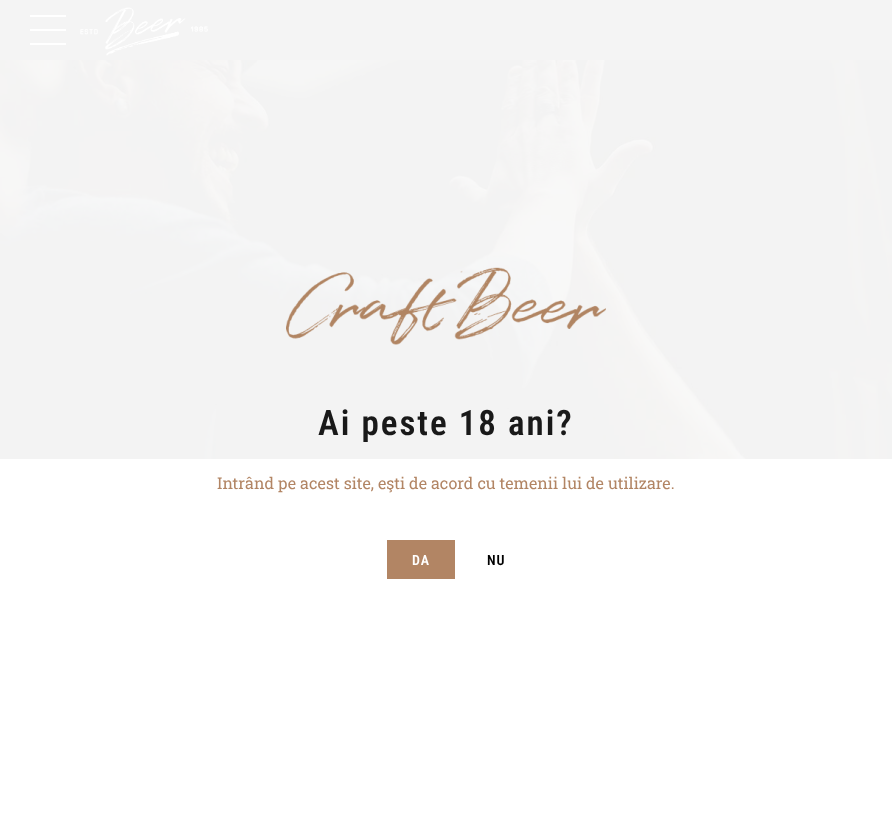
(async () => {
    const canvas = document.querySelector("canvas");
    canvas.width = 892;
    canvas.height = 828;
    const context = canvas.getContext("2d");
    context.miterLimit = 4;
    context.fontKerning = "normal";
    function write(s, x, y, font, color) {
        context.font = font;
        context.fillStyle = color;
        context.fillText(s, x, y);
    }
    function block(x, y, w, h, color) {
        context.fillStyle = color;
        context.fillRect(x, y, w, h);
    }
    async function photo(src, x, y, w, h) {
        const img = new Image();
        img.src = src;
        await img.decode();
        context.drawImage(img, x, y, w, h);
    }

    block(0, 0, 892, 828, "rgb(255, 255, 255)");
    block(0, 0, 892, 60, "rgb(244, 244, 244)");
    block(30, 15, 36, 2, "rgb(255, 255, 255)");
    block(30, 29, 36, 2, "rgb(255, 255, 255)");
    block(30, 43, 36, 2, "rgb(255, 255, 255)");
    await photo("media/1.png", 80, 7, 128, 49);
    await photo("media/2.png", 0, 60, 892, 399);
    await photo("media/3.png", 286, 267, 320, 78);
    context.letterSpacing = "2px";
    write("Ai peste 18 ani?", 318, 435, "600 35px Roboto Condensed", "rgb(25, 25, 25)");
    context.letterSpacing = "0px";
    write("Intrând pe acest site, eşti de acord cu temenii lui de utilizare.", 217, 489, "16.1px Roboto Slab", "rgb(178, 133, 100)");
    block(387, 540, 68, 39, "rgb(178, 133, 100)");
    context.letterSpacing = "1px";
    write("DA", 412, 565, "600 14px Roboto Condensed", "rgb(255, 255, 255)");
    write("NU", 487, 565, "600 14px Roboto Condensed", "rgb(0, 0, 0)");
})();
